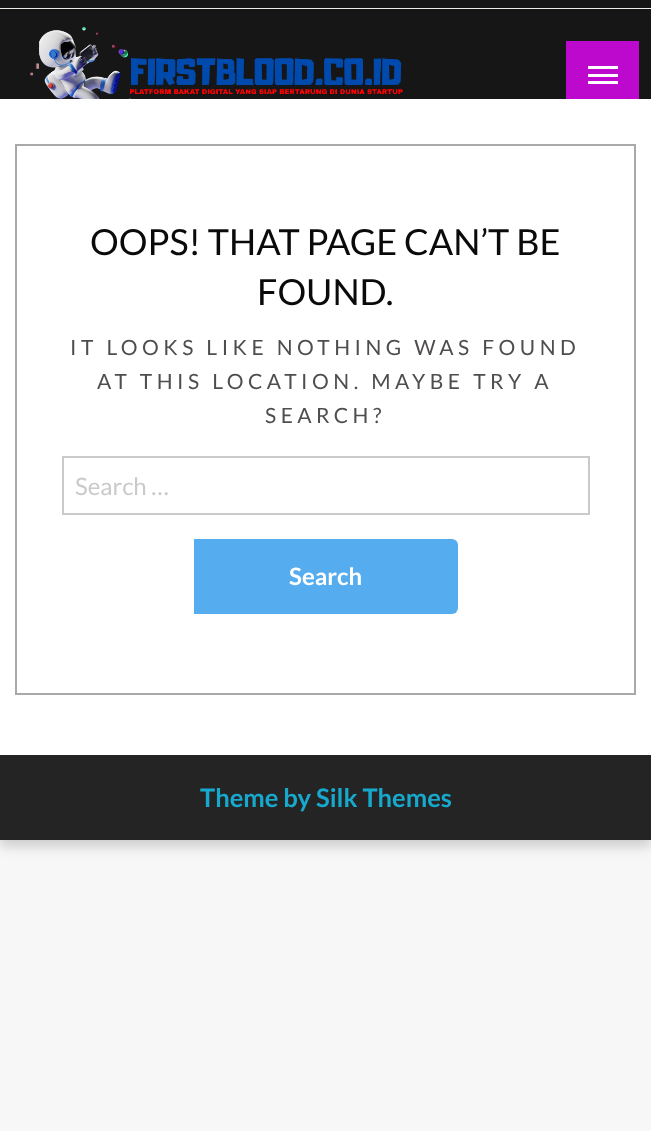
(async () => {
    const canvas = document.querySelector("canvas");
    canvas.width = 651;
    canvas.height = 1131;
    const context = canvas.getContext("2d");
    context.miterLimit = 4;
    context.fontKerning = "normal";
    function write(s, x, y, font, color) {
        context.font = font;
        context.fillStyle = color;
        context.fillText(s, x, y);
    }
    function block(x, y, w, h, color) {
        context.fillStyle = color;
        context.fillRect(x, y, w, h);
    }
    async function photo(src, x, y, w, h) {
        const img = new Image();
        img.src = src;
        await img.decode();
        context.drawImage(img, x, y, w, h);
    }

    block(0, 0, 651, 1131, "rgb(247, 247, 247)");
    context.fillStyle = "rgba(0, 0, 0, 0.09)";
    context.filter = "blur(7.5px)";
    context.beginPath();
    context.rect(0, 5, 651, 840);
    context.fill();
    context.filter = "none";
    context.fillStyle = "rgba(0, 0, 0, 0.1)";
    context.filter = "blur(6px)";
    context.beginPath();
    context.rect(0, 6, 651, 840);
    context.fill();
    context.filter = "none";
    block(0, 0, 651, 8, "rgb(22, 22, 22)");
    block(0, 8, 651, 1, "rgb(236, 237, 231)");
    block(0, 9, 651, 90, "rgb(22, 22, 22)");
    await photo("media/1.png", 30, 26, 373, 73);
    block(566, 41, 73, 58, "rgb(189, 9, 205)");
    block(588, 66, 30, 3, "rgb(255, 255, 255)");
    block(588, 74, 30, 3, "rgb(255, 255, 255)");
    block(588, 81, 30, 3, "rgb(255, 255, 255)");
    block(0, 99, 651, 656, "rgb(255, 255, 255)");
    context.strokeStyle = "rgb(169, 169, 169)";
    context.lineWidth = 2;
    context.strokeRect(16, 145, 619, 549);
    write("OOPS! THAT PAGE CAN’T BE", 90, 255, "36px Lato", "rgb(10, 10, 10)");
    write("FOUND.", 257, 305, "36px Lato", "rgb(10, 10, 10)");
    context.letterSpacing = "4.5px";
    write("IT LOOKS LIKE NOTHING WAS FOUND", 70, 355, "21px Lato", "rgb(80, 77, 77)");
    write("AT THIS LOCATION. MAYBE TRY A", 97, 389, "21px Lato", "rgb(80, 77, 77)");
    write("SEARCH?", 265, 423, "21px Lato", "rgb(80, 77, 77)");
    context.strokeStyle = "rgb(202, 202, 202)";
    context.strokeRect(63, 457, 526, 57);
    context.letterSpacing = "0px";
    write("Search …", 75, 495, "24px Lato", "rgb(202, 202, 202)");
    context.fillStyle = "rgb(85, 172, 238)";
    context.beginPath();
    context.roundRect(194, 539, 264, 75, [0, 6, 6, 0]);
    context.fill();
    write("Search", 289, 585, "bold 24px Lato", "rgb(255, 255, 255)");
    block(0, 755, 651, 85, "rgb(36, 36, 36)");
    write("Theme by Silk Themes", 200, 807, "bold 25.5px Lato", "rgb(23, 169, 205)");
})();
